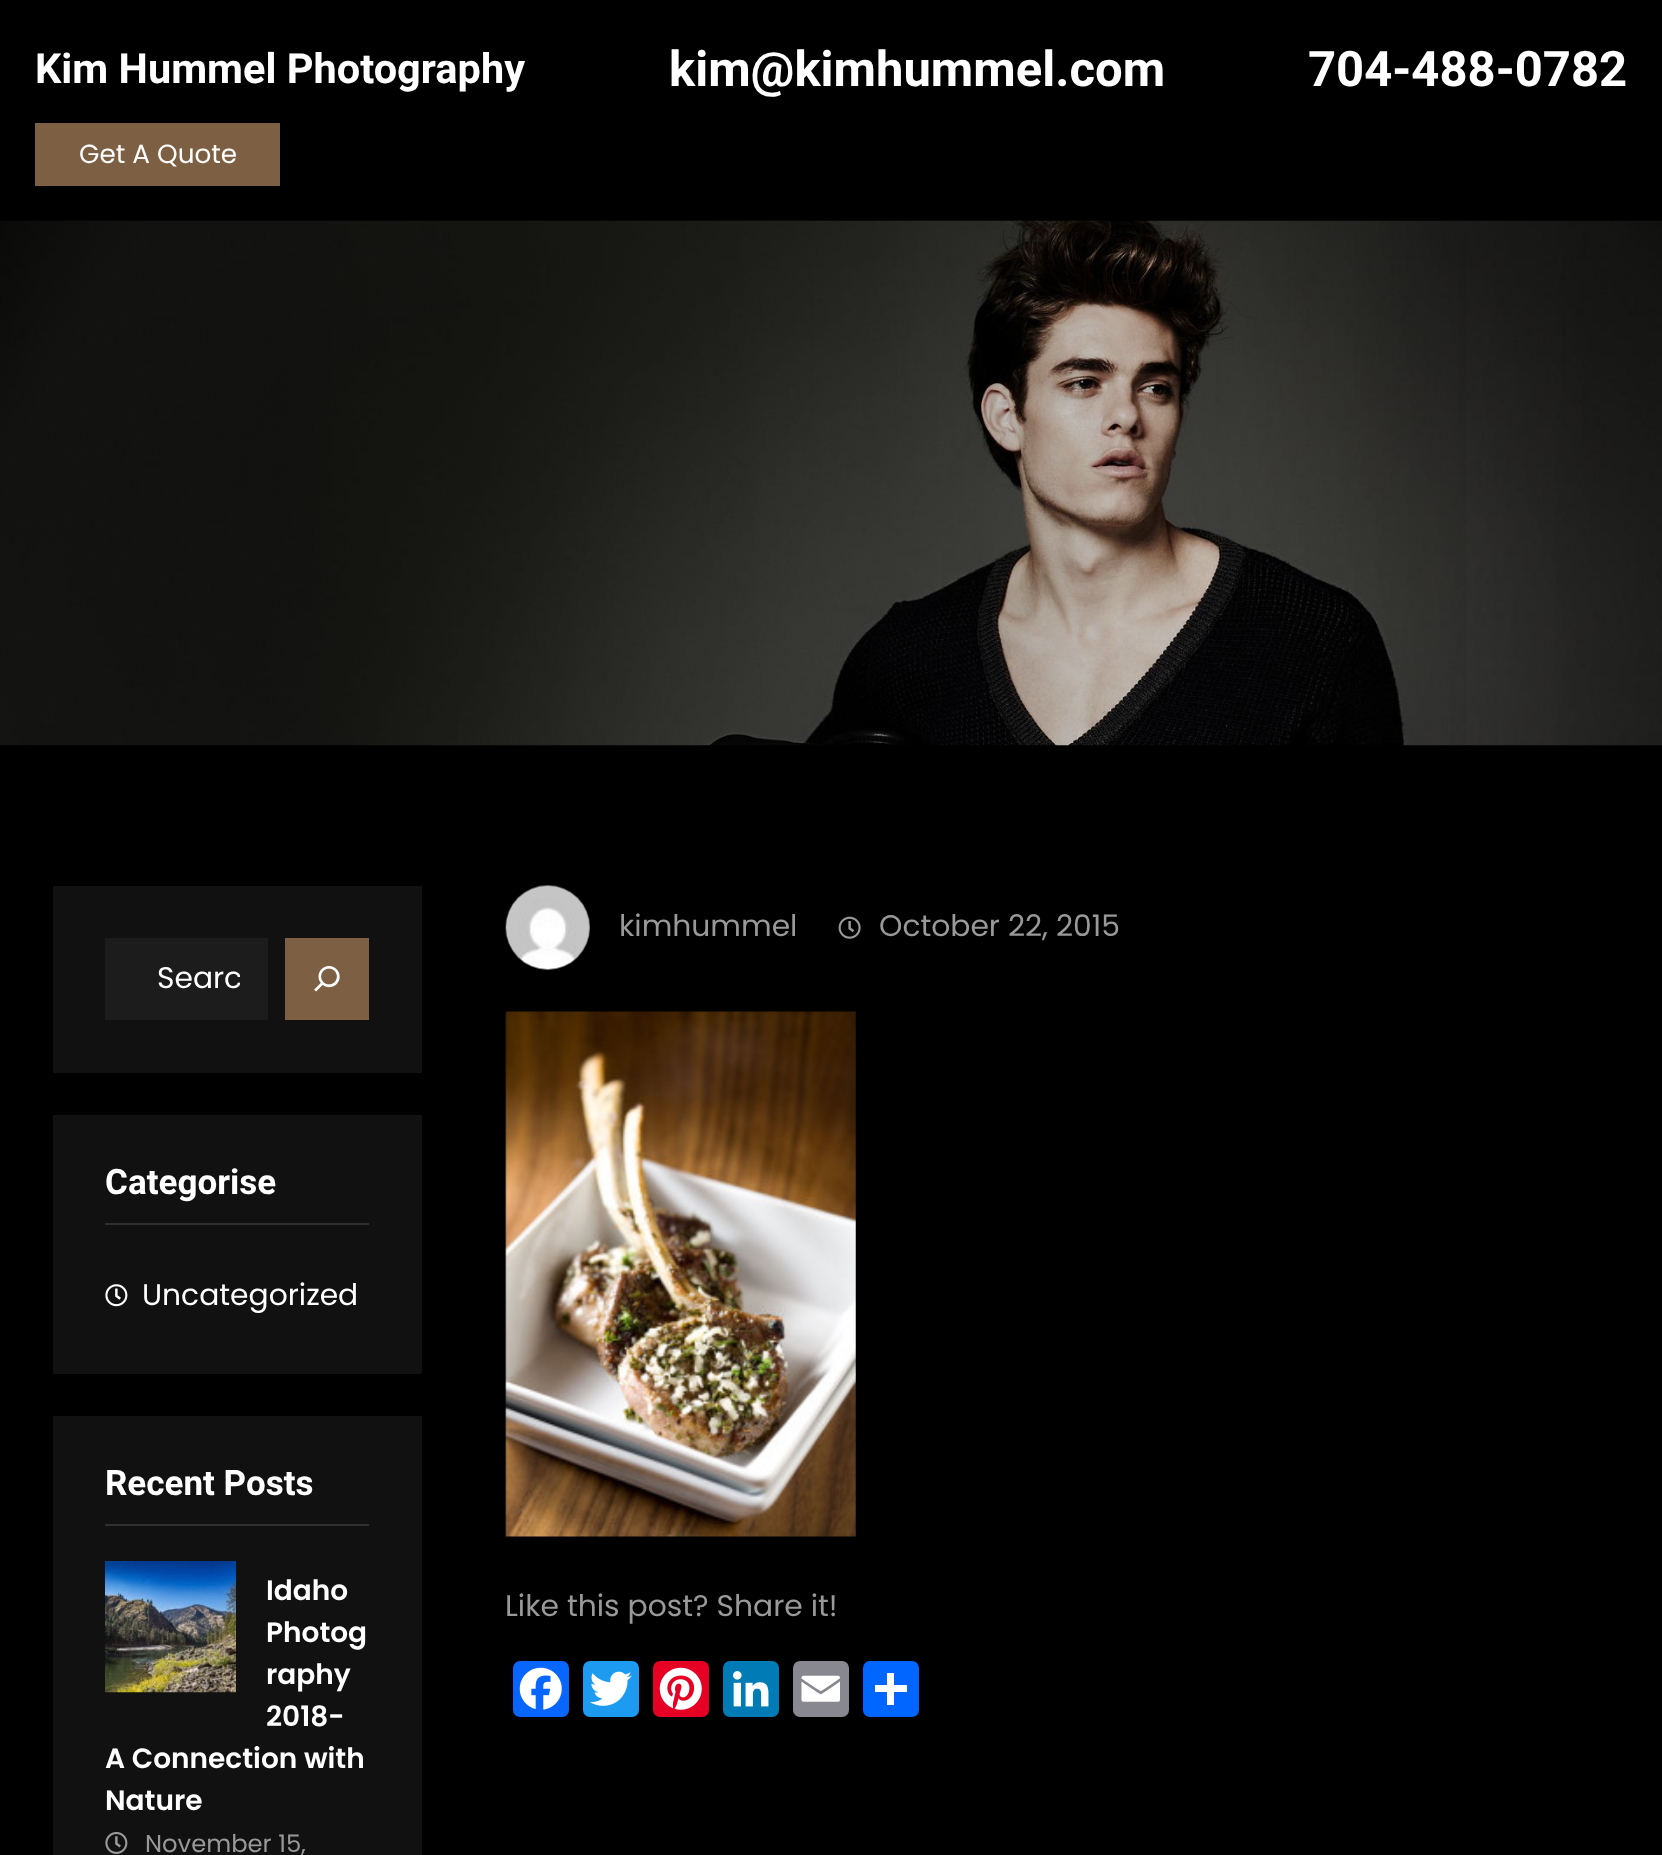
(async () => {
    const canvas = document.querySelector("canvas");
    canvas.width = 1662;
    canvas.height = 1855;
    const context = canvas.getContext("2d");
    context.miterLimit = 4;
    context.fontKerning = "normal";
    function write(s, x, y, font, color) {
        context.font = font;
        context.fillStyle = color;
        context.fillText(s, x, y);
    }
    function block(x, y, w, h, color) {
        context.fillStyle = color;
        context.fillRect(x, y, w, h);
    }
    function card(x, y, w, h, r, color) {
        context.fillStyle = color;
        context.beginPath();
        context.roundRect(x, y, w, h, r);
        context.fill();
    }
    async function photo(src, x, y, w, h) {
        const img = new Image();
        img.src = src;
        await img.decode();
        context.drawImage(img, x, y, w, h);
    }
    let gradient;

    block(0, 0, 1662, 1855, "rgb(0, 0, 0)");
    write("Kim Hummel Photography", 35, 83, "bold 41.5px Roboto", "rgb(255, 255, 255)");
    write("kim@kimhummel.com", 669, 86, "bold 49px Roboto", "rgb(255, 255, 255)");
    write("704-488-0782", 1308, 86, "bold 49px Roboto", "rgb(255, 255, 255)");
    block(35, 123, 245, 63, "rgb(125, 96, 67)");
    write("Get A Quote", 79, 163, "26.25px Poppins", "rgb(255, 255, 255)");
    await photo("media/1.png", 0, 220, 1662, 526);
    gradient = context.createLinearGradient(0, 483, 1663, 483);
    gradient.addColorStop(0.52, "rgba(0, 0, 0, 0.3)");
    gradient.addColorStop(0.96, "rgba(0, 0, 0, 0)");
    context.fillStyle = gradient;
    context.fillRect(0, 221, 1467, 525);
    block(53, 886, 369, 187, "rgb(17, 17, 17)");
    block(105, 938, 163, 82, "rgb(28, 28, 28)");
    context.save();
    context.beginPath();
    context.rect(149, 956, 91, 45);
    context.clip();
    write("Searc", 157, 988, "29.75px Poppins", "rgb(255, 255, 255)");
    context.restore();
    block(285, 938, 84, 82, "rgb(125, 96, 67)");
    await photo("media/2.png", 314, 966, 26, 26);
    block(53, 1115, 369, 259, "rgb(17, 17, 17)");
    write("Categorise", 105, 1194, "bold 35px Roboto", "rgb(255, 255, 255)");
    block(105, 1223, 264, 2, "rgb(48, 47, 47)");
    await photo("media/3.png", 105, 1284, 23, 23);
    write("Uncategorized", 142, 1305, "29.75px Poppins", "rgb(255, 255, 255)");
    block(53, 1416, 369, 439, "rgb(17, 17, 17)");
    write("Recent Posts", 105, 1495, "bold 35px Roboto", "rgb(255, 255, 255)");
    block(105, 1524, 264, 2, "rgb(48, 47, 47)");
    await photo("media/4.png", 105, 1561, 131, 132);
    write("Idaho", 266, 1600, "600 28px Poppins", "rgb(255, 255, 255)");
    write("Photog", 266, 1642, "600 28px Poppins", "rgb(255, 255, 255)");
    write("raphy", 266, 1684, "600 28px Poppins", "rgb(255, 255, 255)");
    write("2018-", 266, 1726, "600 28px Poppins", "rgb(255, 255, 255)");
    write("A Connection with", 105, 1768, "600 28px Poppins", "rgb(255, 255, 255)");
    write("Nature", 105, 1810, "600 28px Poppins", "rgb(255, 255, 255)");
    await photo("media/5.png", 105, 1832, 23, 22);
    write("November 15,", 145, 1852, "24.25px Poppins", "rgb(153, 153, 153)");
    await photo("media/6.png", 505, 885, 85, 85);
    write("kimhummel", 619, 936, "29.75px Poppins", "rgb(153, 153, 153)");
    await photo("media/7.png", 838, 916, 23, 23);
    write("October 22, 2015", 879, 936, "29.75px Poppins", "rgb(153, 153, 153)");
    await photo("media/8.png", 505, 1011, 351, 526);
    write("Like this post? Share it!", 505, 1616, "29.75px Poppins", "rgb(153, 153, 153)");
    card(513, 1661, 56, 56, 7, "rgb(8, 102, 255)");
    await photo("media/9.png", 519, 1667, 43, 43);
    card(583, 1661, 56, 56, 7, "rgb(29, 155, 240)");
    await photo("media/10.png", 590, 1671, 42, 35);
    card(653, 1661, 56, 56, 7, "rgb(230, 0, 35)");
    await photo("media/11.png", 659, 1667, 43, 43);
    card(723, 1661, 56, 56, 7, "rgb(0, 123, 181)");
    await photo("media/12.png", 733, 1671, 36, 36);
    card(793, 1661, 56, 56, 7, "rgb(136, 137, 144)");
    await photo("media/13.png", 801, 1675, 39, 27);
    card(863, 1661, 56, 56, 7, "rgb(1, 102, 255)");
    block(887, 1673, 7, 32, "rgb(255, 255, 255)");
    block(875, 1685, 32, 7, "rgb(255, 255, 255)");
})();
